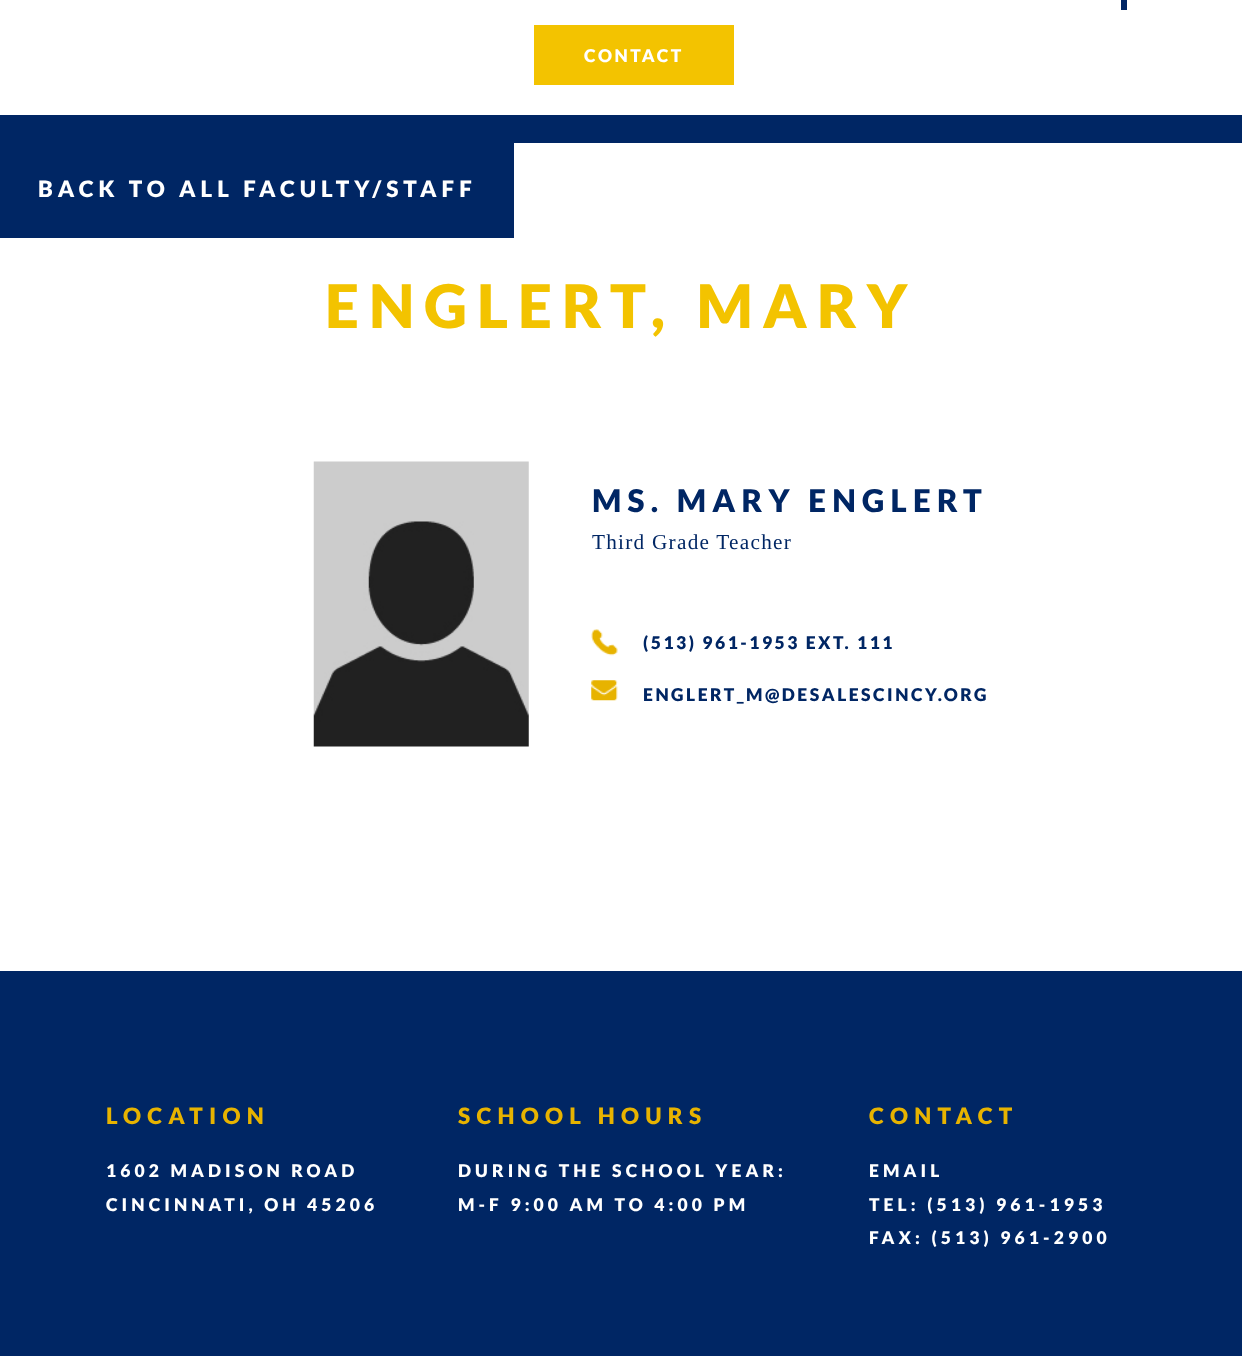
(async () => {
    const canvas = document.querySelector("canvas");
    canvas.width = 1242;
    canvas.height = 1356;
    const context = canvas.getContext("2d");
    context.miterLimit = 4;
    context.fontKerning = "normal";
    function write(s, x, y, font, color) {
        context.font = font;
        context.fillStyle = color;
        context.fillText(s, x, y);
    }
    function block(x, y, w, h, color) {
        context.fillStyle = color;
        context.fillRect(x, y, w, h);
    }
    async function photo(src, x, y, w, h) {
        const img = new Image();
        img.src = src;
        await img.decode();
        context.drawImage(img, x, y, w, h);
    }

    block(0, 0, 1242, 1356, "rgb(255, 255, 255)");
    block(0, 115, 1242, 28, "rgb(0, 38, 100)");
    block(1121, 0, 6, 10, "rgb(0, 38, 100)");
    block(534, 25, 200, 60, "rgb(243, 195, 0)");
    context.letterSpacing = "2.5px";
    write("CONTACT", 584, 62, "900 17.5px Lato", "rgb(255, 255, 255)");
    block(0, 143, 514, 95, "rgb(0, 38, 100)");
    context.letterSpacing = "5px";
    write("BACK TO ALL FACULTY/STAFF", 38, 197, "900 22.5px Lato", "rgb(255, 255, 255)");
    context.letterSpacing = "10px";
    write("ENGLERT, MARY", 325, 328, "900 60px Lato", "rgb(243, 195, 0)");
    await photo("media/1.png", 313, 461, 216, 286);
    context.letterSpacing = "6.25px";
    write("MS. MARY ENGLERT", 592, 512, "900 31.25px Lato", "rgb(0, 38, 100)");
    context.letterSpacing = "1.25px";
    write("Third Grade Teacher", 592, 549, "21.25px Liberation Serif", "rgb(0, 38, 100)");
    await photo("media/2.png", 591, 629, 27, 27);
    context.letterSpacing = "2.5px";
    write("(513) 961-1953 EXT. 111", 643, 649, "900 17.5px Lato", "rgb(0, 38, 100)");
    await photo("media/3.png", 591, 680, 27, 21);
    write("ENGLERT_M@DESALESCINCY.ORG", 643, 701, "900 17.5px Lato", "rgb(0, 38, 100)");
    block(0, 971, 1242, 385, "rgb(0, 38, 100)");
    context.letterSpacing = "6.25px";
    write("LOCATION", 106, 1124, "900 22.5px Lato", "rgb(231, 179, 0)");
    context.letterSpacing = "4.1px";
    write("1602 MADISON ROAD", 106, 1177, "900 17.5px Lato", "rgb(255, 255, 255)");
    write("CINCINNATI, OH 45206", 106, 1211, "900 17.5px Lato", "rgb(255, 255, 255)");
    context.letterSpacing = "6.25px";
    write("SCHOOL HOURS", 458, 1124, "900 22.5px Lato", "rgb(231, 179, 0)");
    context.letterSpacing = "4.1px";
    write("DURING THE SCHOOL YEAR:", 458, 1177, "900 17.5px Lato", "rgb(255, 255, 255)");
    write("M-F 9:00 AM TO 4:00 PM", 458, 1211, "900 17.5px Lato", "rgb(255, 255, 255)");
    context.letterSpacing = "6.25px";
    write("CONTACT", 869, 1124, "900 22.5px Lato", "rgb(231, 179, 0)");
    context.letterSpacing = "4.1px";
    write("EMAIL", 869, 1177, "900 17.5px Lato", "rgb(255, 255, 255)");
    write("TEL: (513) 961-1953", 869, 1211, "900 17.5px Lato", "rgb(255, 255, 255)");
    write("FAX: (513) 961-2900", 869, 1244, "900 17.5px Lato", "rgb(255, 255, 255)");
})();
